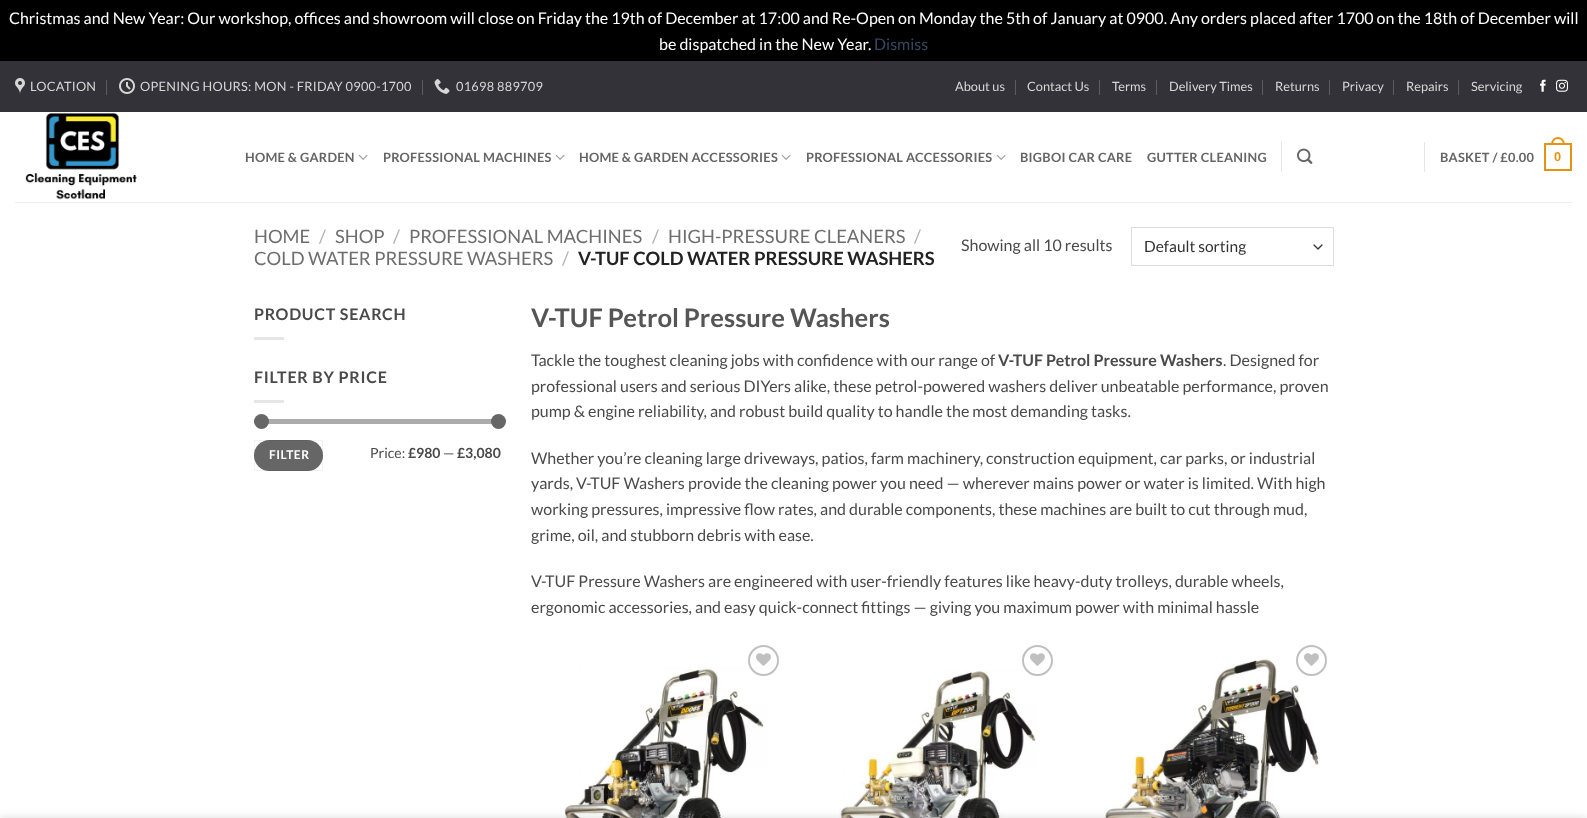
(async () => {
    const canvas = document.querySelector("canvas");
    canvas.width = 1587;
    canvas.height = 818;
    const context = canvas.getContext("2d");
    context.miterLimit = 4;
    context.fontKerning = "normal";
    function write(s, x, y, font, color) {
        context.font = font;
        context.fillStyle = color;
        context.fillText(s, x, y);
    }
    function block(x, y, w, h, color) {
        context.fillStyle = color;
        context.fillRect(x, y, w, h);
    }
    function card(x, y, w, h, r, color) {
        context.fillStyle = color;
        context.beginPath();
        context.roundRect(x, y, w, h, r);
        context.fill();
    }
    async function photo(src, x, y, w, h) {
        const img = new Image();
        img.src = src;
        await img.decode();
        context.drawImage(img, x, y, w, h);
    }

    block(0, 0, 1587, 818, "rgb(0, 0, 0)");
    write("Christmas and New Year: Our workshop, offices and showroom will close on Friday the 19th of December at 17:00 and Re-Open on Monday the 5th of January at 0900. Any orders placed after 1700 on the 18th of December will", 9, 24, "16px Lato", "rgb(255, 255, 255)");
    write("be dispatched in the New Year.", 659, 50, "16px Lato", "rgb(255, 255, 255)");
    write("Dismiss", 874, 50, "16px Lato", "rgb(51, 72, 98)");
    block(0, 112, 1587, 706, "rgb(255, 255, 255)");
    block(0, 61, 1587, 51, "rgb(50, 50, 56)");
    await photo("media/1.png", 15, 78, 10, 16);
    context.letterSpacing = "0.25px";
    write("LOCATION", 30, 91, "12.8px Lato", "rgb(214, 214, 215)");
    block(106, 80, 1, 15, "rgb(91, 91, 96)");
    await photo("media/2.png", 119, 78, 16, 16);
    write("OPENING HOURS: MON - FRIDAY 0900-1700", 140, 91, "12.8px Lato", "rgb(214, 214, 215)");
    block(422, 80, 1, 15, "rgb(91, 91, 96)");
    await photo("media/3.png", 434, 79, 16, 15);
    write("01698 889709", 456, 91, "12.8px Lato", "rgb(214, 214, 215)");
    context.letterSpacing = "0px";
    write("About us", 955, 91, "12.8px Lato", "rgb(214, 214, 215)");
    block(1015, 80, 1, 15, "rgb(91, 91, 96)");
    write("Contact Us", 1027, 91, "12.8px Lato", "rgb(214, 214, 215)");
    block(1099, 80, 1, 15, "rgb(91, 91, 96)");
    write("Terms", 1112, 91, "12.8px Lato", "rgb(214, 214, 215)");
    block(1156, 80, 1, 15, "rgb(91, 91, 96)");
    write("Delivery Times", 1169, 91, "12.8px Lato", "rgb(214, 214, 215)");
    block(1262, 80, 1, 15, "rgb(91, 91, 96)");
    write("Returns", 1275, 91, "12.8px Lato", "rgb(214, 214, 215)");
    block(1329, 80, 1, 15, "rgb(91, 91, 96)");
    write("Privacy", 1342, 91, "12.8px Lato", "rgb(214, 214, 215)");
    block(1393, 80, 1, 15, "rgb(91, 91, 96)");
    write("Repairs", 1406, 91, "12.8px Lato", "rgb(214, 214, 215)");
    block(1458, 80, 1, 15, "rgb(91, 91, 96)");
    write("Servicing", 1471, 91, "12.8px Lato", "rgb(214, 214, 215)");
    await photo("media/4.png", 1540, 79, 6, 13);
    await photo("media/5.png", 1556, 79, 12, 13);
    await photo("media/6.png", 25, 113, 112, 87);
    context.letterSpacing = "0.25px";
    write("HOME & GARDEN", 245, 162, "bold 12.8px Lato", "rgb(101, 101, 101)");
    await photo("media/7.png", 358, 154, 10, 6);
    write("PROFESSIONAL MACHINES", 383, 162, "bold 12.8px Lato", "rgb(101, 101, 101)");
    await photo("media/7.png", 555, 154, 10, 6);
    write("HOME & GARDEN ACCESSORIES", 579, 162, "bold 12.8px Lato", "rgb(101, 101, 101)");
    await photo("media/7.png", 781, 154, 10, 6);
    write("PROFESSIONAL ACCESSORIES", 806, 162, "bold 12.8px Lato", "rgb(101, 101, 101)");
    await photo("media/7.png", 996, 154, 10, 6);
    write("BIGBOI CAR CARE", 1020, 162, "bold 12.8px Lato", "rgb(101, 101, 101)");
    write("GUTTER CLEANING", 1147, 162, "bold 12.8px Lato", "rgb(101, 101, 101)");
    block(1281, 142, 1, 30, "rgb(230, 230, 230)");
    await photo("media/8.png", 1297, 148, 16, 16);
    block(1424, 142, 1, 30, "rgb(230, 230, 230)");
    write("BASKET / £0.00", 1440, 162, "bold 12.8px Lato", "rgb(101, 101, 101)");
    context.strokeStyle = "rgb(231, 146, 18)";
    context.lineWidth = 2;
    context.strokeRect(1545, 144, 26, 26);
    context.fillStyle = "rgb(231, 146, 18)";
    context.beginPath();
    context.moveTo(1558, 137);
    context.bezierCurveTo(1562.5, 137, 1565, 141, 1565, 145);
    context.lineTo(1551, 145);
    context.bezierCurveTo(1551, 141, 1553.5, 137, 1558, 137);
    context.closePath();
    context.moveTo(1558, 139);
    context.bezierCurveTo(1561.5, 139, 1563, 142, 1563, 145);
    context.lineTo(1553, 145);
    context.bezierCurveTo(1553, 142, 1554.5, 139, 1558, 139);
    context.closePath();
    context.fill("evenodd");
    write("0", 1554, 161, "bold 12.8px Liberation Sans", "rgb(231, 146, 18)");
    block(15, 202, 1557, 1, "rgb(237, 237, 237)");
    context.letterSpacing = "0px";
    write("HOME", 254, 243, "18.4px Lato", "rgb(110, 110, 110)");
    write("/", 319, 243, "18.4px Lato", "rgb(178, 178, 178)");
    write("SHOP", 335, 243, "18.4px Lato", "rgb(110, 110, 110)");
    write("/", 393, 243, "18.4px Lato", "rgb(178, 178, 178)");
    write("PROFESSIONAL MACHINES", 409, 243, "18.4px Lato", "rgb(110, 110, 110)");
    write("/", 652, 243, "18.4px Lato", "rgb(178, 178, 178)");
    write("HIGH-PRESSURE CLEANERS", 668, 243, "18.4px Lato", "rgb(110, 110, 110)");
    write("/", 914, 243, "18.4px Lato", "rgb(178, 178, 178)");
    write("COLD WATER PRESSURE WASHERS", 254, 265, "18.4px Lato", "rgb(110, 110, 110)");
    write("/", 562, 265, "18.4px Lato", "rgb(178, 178, 178)");
    write("V-TUF COLD WATER PRESSURE WASHERS", 578, 265, "bold 18.4px Lato", "rgb(34, 34, 34)");
    write("Showing all 10 results", 961, 251, "16px Lato", "rgb(74, 74, 74)");
    context.beginPath();
    context.moveTo(1314, 245);
    context.lineTo(1318, 249);
    context.lineTo(1322, 245);
    context.strokeStyle = "rgb(51, 51, 51)";
    context.lineWidth = 1.3;
    context.lineCap = "round";
    context.lineJoin = "round";
    context.stroke();
    context.strokeStyle = "rgb(221, 221, 221)";
    context.lineWidth = 1;
    context.lineJoin = "miter";
    context.strokeRect(1131.5, 227.5, 202, 38);
    write("Default sorting", 1144, 252, "15.5px Lato", "rgb(51, 51, 51)");
    context.letterSpacing = "0.75px";
    write("PRODUCT SEARCH", 254, 320, "bold 16px Lato", "rgb(74, 74, 74)");
    block(254, 337, 30, 3, "rgb(230, 230, 230)");
    write("FILTER BY PRICE", 254, 383, "bold 16px Lato", "rgb(74, 74, 74)");
    block(254, 400, 30, 3, "rgb(230, 230, 230)");
    card(254, 419, 247, 5, 2.5, "rgb(241, 241, 241)");
    card(254, 419, 247, 5, 2.5, "rgba(102, 102, 102, 0.5)");
    context.fillStyle = "rgb(102, 102, 102)";
    context.beginPath();
    context.arc(261.5, 421.5, 7.5, 0, Math.PI * 2);
    context.fill();
    context.beginPath();
    context.arc(498.5, 421.5, 7.5, 0, Math.PI * 2);
    context.fill();
    card(254, 440, 69, 31, 15.5, "rgb(102, 102, 102)");
    context.strokeStyle = "rgba(0, 0, 0, 0.05)";
    context.strokeRect(254.5, 440.5, 68, 30);
    context.letterSpacing = "0.5px";
    write("FILTER", 269, 459, "bold 12px Lato", "rgb(255, 255, 255)");
    context.letterSpacing = "0px";
    write("Price:", 370, 458, "14px Lato", "rgb(74, 74, 74)");
    write("£980", 408, 458, "bold 14px Lato", "rgb(74, 74, 74)");
    write("—", 443, 458, "14px Lato", "rgb(74, 74, 74)");
    write("£3,080", 457, 458, "bold 14px Lato", "rgb(74, 74, 74)");
    write("V-TUF Petrol Pressure Washers", 531, 327, "bold 25.6px Lato", "rgb(85, 85, 85)");
    write("Tackle the toughest cleaning jobs with confidence with our range of", 531, 366, "16px Lato", "rgb(74, 74, 74)");
    write("V-TUF Petrol Pressure Washers", 998, 366, "bold 16px Lato", "rgb(74, 74, 74)");
    write(". Designed for", 1223, 366, "16px Lato", "rgb(74, 74, 74)");
    write("professional users and serious DIYers alike, these petrol-powered washers deliver unbeatable performance, proven", 531, 392, "16px Lato", "rgb(74, 74, 74)");
    write("pump & engine reliability, and robust build quality to handle the most demanding tasks.", 531, 417, "16px Lato", "rgb(74, 74, 74)");
    write("Whether you’re cleaning large driveways, patios, farm machinery, construction equipment, car parks, or industrial", 531, 464, "16px Lato", "rgb(74, 74, 74)");
    write("yards, V-TUF Washers provide the cleaning power you need — wherever mains power or water is limited. With high", 531, 489, "16px Lato", "rgb(74, 74, 74)");
    write("working pressures, impressive flow rates, and durable components, these machines are built to cut through mud,", 531, 515, "16px Lato", "rgb(74, 74, 74)");
    write("grime, oil, and stubborn debris with ease.", 531, 541, "16px Lato", "rgb(74, 74, 74)");
    write("V-TUF Pressure Washers are engineered with user-friendly features like heavy-duty trolleys, durable wheels,", 531, 587, "16px Lato", "rgb(74, 74, 74)");
    write("ergonomic accessories, and easy quick-connect fittings — giving you maximum power with minimal hassle", 531, 613, "16px Lato", "rgb(74, 74, 74)");
    await photo("media/10.png", 564, 667, 204, 151);
    context.beginPath();
    context.arc(763.5, 660.5, 14.5, 0, Math.PI * 2);
    context.strokeStyle = "rgb(192, 192, 192)";
    context.lineWidth = 2;
    context.stroke();
    await photo("media/9.png", 756, 653, 15, 13);
    await photo("media/11.png", 839, 669, 197, 149);
    context.beginPath();
    context.arc(1037.5, 660.5, 14.5, 0, Math.PI * 2);
    context.stroke();
    await photo("media/9.png", 1030, 653, 15, 13);
    await photo("media/12.png", 1105, 658, 215, 160);
    context.beginPath();
    context.arc(1311.5, 660.5, 14.5, 0, Math.PI * 2);
    context.stroke();
    await photo("media/9.png", 1304, 653, 15, 13);
    context.fillStyle = "rgba(0, 0, 0, 0.14)";
    context.filter = "blur(4.5px)";
    context.beginPath();
    context.rect(0, 818, 1587, 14);
    context.fill();
    context.filter = "none";
})();
